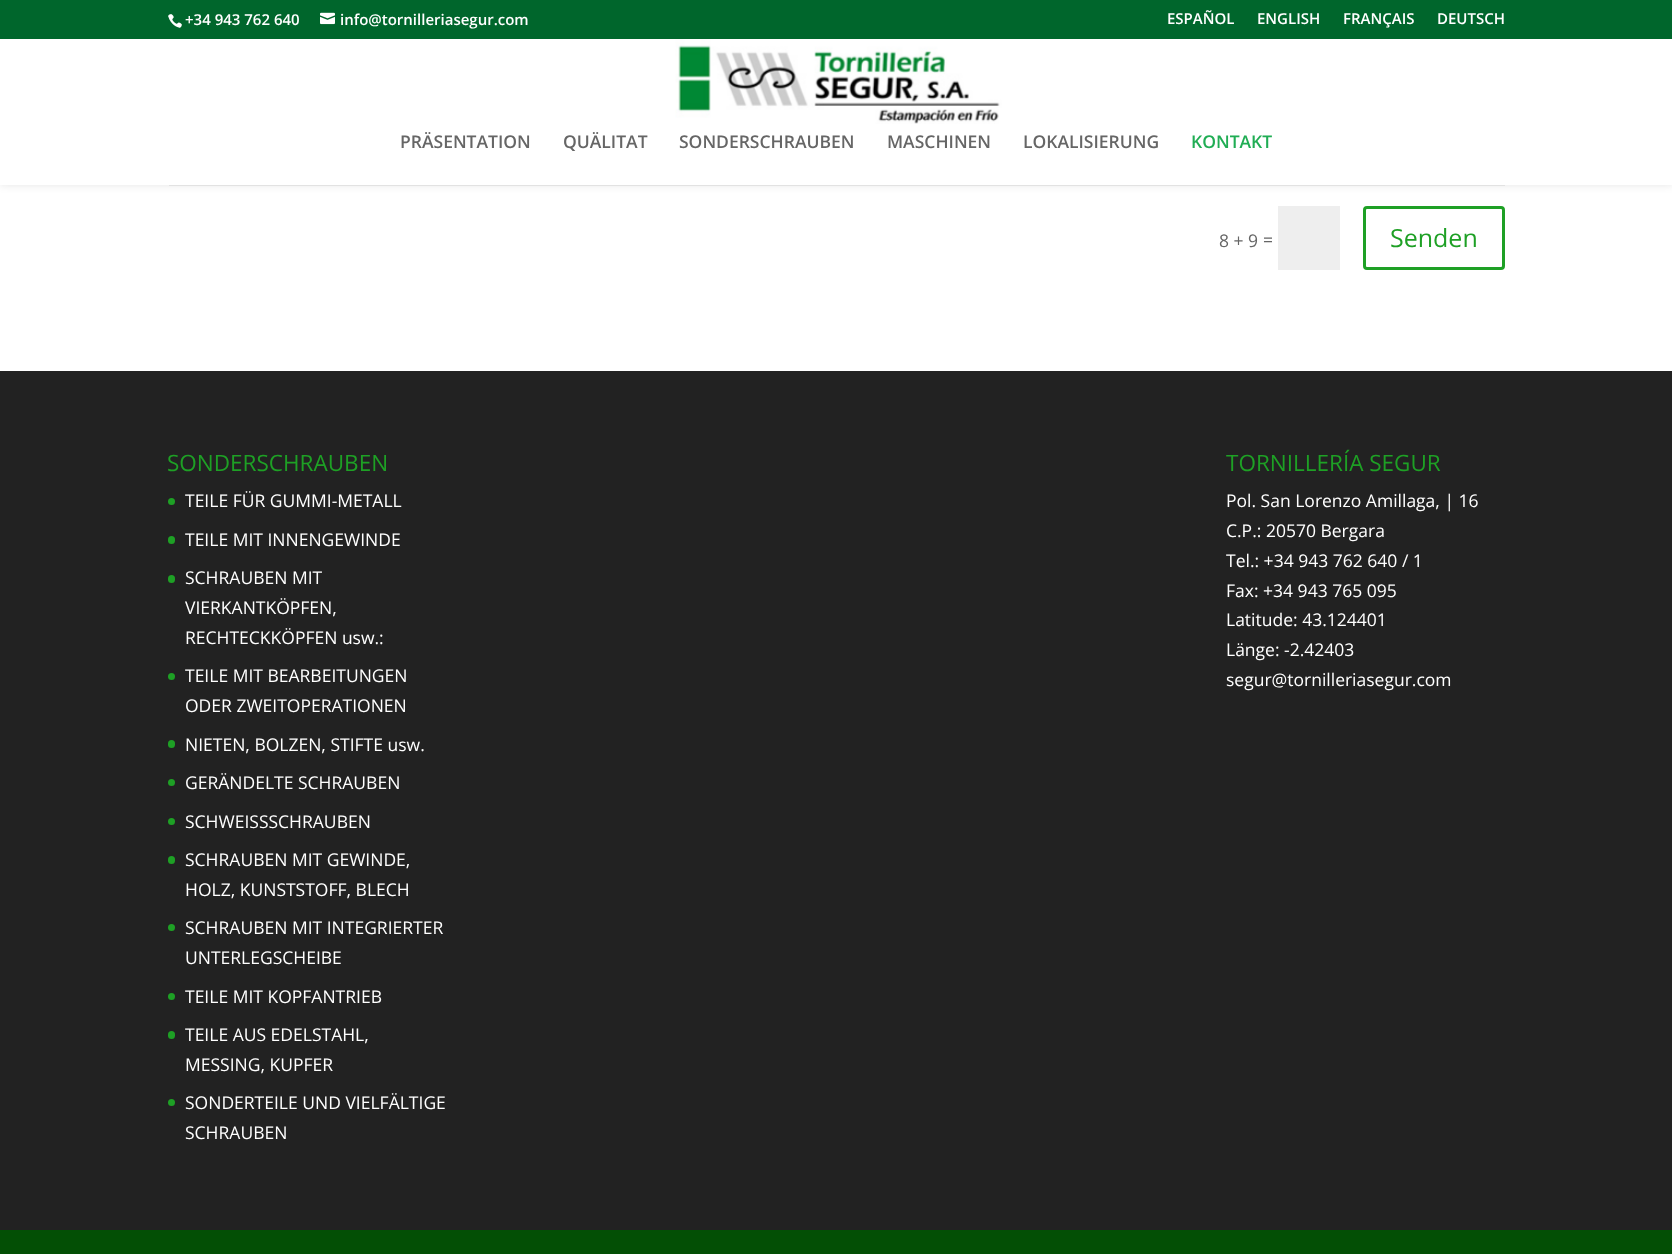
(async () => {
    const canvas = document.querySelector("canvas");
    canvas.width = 1672;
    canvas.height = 1254;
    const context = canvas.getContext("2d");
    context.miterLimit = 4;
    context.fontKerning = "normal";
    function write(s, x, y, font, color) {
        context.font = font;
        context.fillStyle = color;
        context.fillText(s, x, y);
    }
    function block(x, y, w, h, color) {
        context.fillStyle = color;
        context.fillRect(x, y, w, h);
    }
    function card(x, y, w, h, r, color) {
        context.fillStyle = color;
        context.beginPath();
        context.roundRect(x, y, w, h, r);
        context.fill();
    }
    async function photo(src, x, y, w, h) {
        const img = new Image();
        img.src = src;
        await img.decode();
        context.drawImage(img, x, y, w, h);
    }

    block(0, 0, 1672, 1254, "rgb(255, 255, 255)");
    block(169, 185, 1336, 1, "rgb(238, 238, 238)");
    context.fillStyle = "rgba(0, 0, 0, 0.1)";
    context.filter = "blur(4.5px)";
    context.beginPath();
    context.rect(0, 39, 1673, 146);
    context.fill();
    context.filter = "none";
    block(0, 0, 1672, 39, "rgb(0, 102, 44)");
    await photo("media/1.png", 168, 14, 14, 14);
    write("+34 943 762 640", 185, 25, "600 15px Open Sans", "rgb(255, 255, 255)");
    await photo("media/2.png", 320, 12, 15, 13);
    write("info@tornilleriasegur.com", 340, 25, "600 15px Open Sans", "rgb(255, 255, 255)");
    write("ESPAÑOL", 1167, 24, "600 15px Open Sans", "rgb(255, 255, 255)");
    write("ENGLISH", 1257, 24, "600 15px Open Sans", "rgb(255, 255, 255)");
    write("FRANÇAIS", 1343, 24, "600 15px Open Sans", "rgb(255, 255, 255)");
    write("DEUTSCH", 1437, 24, "600 15px Open Sans", "rgb(255, 255, 255)");
    block(0, 39, 1672, 146, "rgb(255, 255, 255)");
    await photo("media/3.png", 675, 39, 327, 85);
    write("PRÄSENTATION", 400, 148, "600 17.5px Open Sans", "rgb(102, 102, 102)");
    write("QUÄLITAT", 563, 148, "600 17.5px Open Sans", "rgb(102, 102, 102)");
    write("SONDERSCHRAUBEN", 679, 148, "600 17.5px Open Sans", "rgb(102, 102, 102)");
    write("MASCHINEN", 887, 148, "600 17.5px Open Sans", "rgb(102, 102, 102)");
    write("LOKALISIERUNG", 1023, 148, "600 17.5px Open Sans", "rgb(102, 102, 102)");
    write("KONTAKT", 1191, 148, "600 17.5px Open Sans", "rgb(32, 173, 84)");
    write("8 + 9", 1219, 247, "17.5px Open Sans", "rgb(102, 102, 102)");
    write("=", 1263, 246, "17.5px Open Sans", "rgb(102, 102, 102)");
    block(1278, 206, 62, 64, "rgb(238, 238, 238)");
    context.beginPath();
    context.roundRect(1364.5, 207.5, 139, 61, 2.5);
    context.strokeStyle = "rgb(30, 160, 37)";
    context.lineWidth = 3;
    context.stroke();
    write("Senden", 1390, 247, "25px Open Sans", "rgb(30, 160, 37)");
    block(0, 371, 1672, 859, "rgb(34, 34, 34)");
    write("SONDERSCHRAUBEN", 167, 471, "22.5px Open Sans", "rgb(30, 160, 37)");
    context.beginPath();
    context.arc(171.5, 501.5, 3.5, 0, Math.PI * 2);
    context.fill();
    write("TEILE FÜR GUMMI-METALL", 185, 507, "17.5px Open Sans", "rgb(255, 255, 255)");
    card(168, 536, 7, 8, 3.5, "rgb(30, 160, 37)");
    write("TEILE MIT INNENGEWINDE", 185, 546, "17.5px Open Sans", "rgb(255, 255, 255)");
    card(168, 575, 7, 8, 3.5, "rgb(30, 160, 37)");
    write("SCHRAUBEN MIT", 185, 584, "17.5px Open Sans", "rgb(255, 255, 255)");
    write("VIERKANTKÖPFEN,", 185, 614, "17.5px Open Sans", "rgb(255, 255, 255)");
    write("RECHTECKKÖPFEN usw.:", 185, 644, "17.5px Open Sans", "rgb(255, 255, 255)");
    context.fillStyle = "rgb(30, 160, 37)";
    context.beginPath();
    context.arc(171.5, 676.5, 3.5, 0, Math.PI * 2);
    context.fill();
    write("TEILE MIT BEARBEITUNGEN", 185, 682, "17.5px Open Sans", "rgb(255, 255, 255)");
    write("ODER ZWEITOPERATIONEN", 185, 712, "17.5px Open Sans", "rgb(255, 255, 255)");
    card(168, 740, 7, 8, 3.5, "rgb(30, 160, 37)");
    write("NIETEN, BOLZEN, STIFTE usw.", 185, 751, "17.5px Open Sans", "rgb(255, 255, 255)");
    context.fillStyle = "rgb(30, 160, 37)";
    context.beginPath();
    context.arc(171.5, 782.5, 3.5, 0, Math.PI * 2);
    context.fill();
    write("GERÄNDELTE SCHRAUBEN", 185, 789, "17.5px Open Sans", "rgb(255, 255, 255)");
    context.fillStyle = "rgb(30, 160, 37)";
    context.beginPath();
    context.arc(171.5, 821.5, 3.5, 0, Math.PI * 2);
    context.fill();
    write("SCHWEISSSCHRAUBEN", 185, 828, "17.5px Open Sans", "rgb(255, 255, 255)");
    card(168, 856, 7, 8, 3.5, "rgb(30, 160, 37)");
    write("SCHRAUBEN MIT GEWINDE,", 185, 866, "17.5px Open Sans", "rgb(255, 255, 255)");
    write("HOLZ, KUNSTSTOFF, BLECH", 185, 896, "17.5px Open Sans", "rgb(255, 255, 255)");
    context.fillStyle = "rgb(30, 160, 37)";
    context.beginPath();
    context.arc(171.5, 927.5, 3.5, 0, Math.PI * 2);
    context.fill();
    write("SCHRAUBEN MIT INTEGRIERTER", 185, 934, "17.5px Open Sans", "rgb(255, 255, 255)");
    write("UNTERLEGSCHEIBE", 185, 964, "17.5px Open Sans", "rgb(255, 255, 255)");
    context.fillStyle = "rgb(30, 160, 37)";
    context.beginPath();
    context.arc(171.5, 996.5, 3.5, 0, Math.PI * 2);
    context.fill();
    write("TEILE MIT KOPFANTRIEB", 185, 1003, "17.5px Open Sans", "rgb(255, 255, 255)");
    card(168, 1031, 7, 8, 3.5, "rgb(30, 160, 37)");
    write("TEILE AUS EDELSTAHL,", 185, 1041, "17.5px Open Sans", "rgb(255, 255, 255)");
    write("MESSING, KUPFER", 185, 1071, "17.5px Open Sans", "rgb(255, 255, 255)");
    context.fillStyle = "rgb(30, 160, 37)";
    context.beginPath();
    context.arc(171.5, 1102.5, 3.5, 0, Math.PI * 2);
    context.fill();
    write("SONDERTEILE UND VIELFÄLTIGE", 185, 1109, "17.5px Open Sans", "rgb(255, 255, 255)");
    write("SCHRAUBEN", 185, 1139, "17.5px Open Sans", "rgb(255, 255, 255)");
    write("TORNILLERÍA SEGUR", 1226, 471, "22.5px Open Sans", "rgb(30, 160, 37)");
    write("Pol. San Lorenzo Amillaga, | 16", 1226, 507, "17.5px Open Sans", "rgb(255, 255, 255)");
    write("C.P.: 20570 Bergara", 1226, 537, "17.5px Open Sans", "rgb(255, 255, 255)");
    write("Tel.: +34 943 762 640 / 1", 1226, 567, "17.5px Open Sans", "rgb(255, 255, 255)");
    write("Fax: +34 943 765 095", 1226, 597, "17.5px Open Sans", "rgb(255, 255, 255)");
    write("Latitude: 43.124401", 1226, 626, "17.5px Open Sans", "rgb(255, 255, 255)");
    write("Länge: -2.42403", 1226, 656, "17.5px Open Sans", "rgb(255, 255, 255)");
    write("segur@tornilleriasegur.com", 1226, 686, "17.5px Open Sans", "rgb(255, 255, 255)");
    block(0, 1230, 1672, 24, "rgb(3, 79, 5)");
})();
